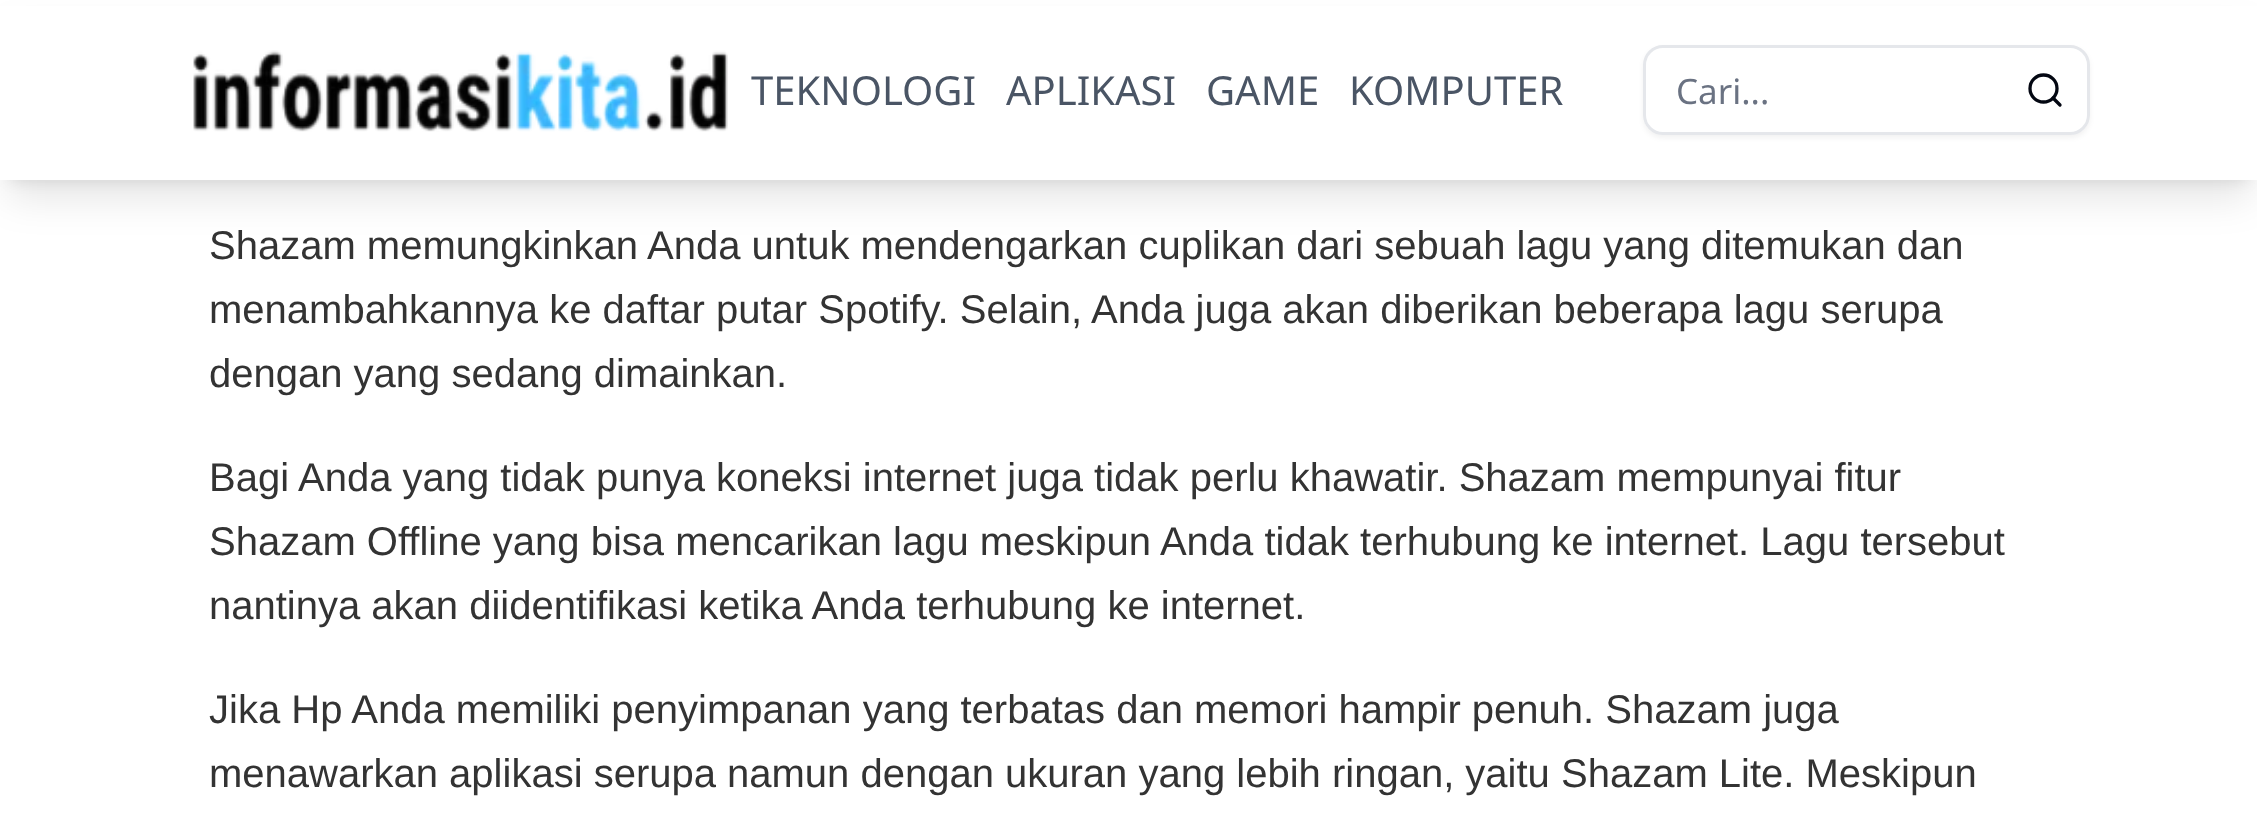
(async () => {
    const canvas = document.querySelector("canvas");
    canvas.width = 2257;
    canvas.height = 839;
    const context = canvas.getContext("2d");
    context.miterLimit = 4;
    context.fontKerning = "normal";
    function write(s, x, y, font, color) {
        context.font = font;
        context.fillStyle = color;
        context.fillText(s, x, y);
    }
    function block(x, y, w, h, color) {
        context.fillStyle = color;
        context.fillRect(x, y, w, h);
    }
    async function photo(src, x, y, w, h) {
        const img = new Image();
        img.src = src;
        await img.decode();
        context.drawImage(img, x, y, w, h);
    }

    block(0, 0, 2257, 839, "rgb(255, 255, 255)");
    context.fillStyle = "rgba(0, 0, 0, 0.1)";
    context.filter = "blur(7.5px)";
    context.beginPath();
    context.rect(10, 20, 2238, 160);
    context.fill();
    context.filter = "none";
    context.filter = "blur(19px)";
    context.beginPath();
    context.rect(8, 33, 2242, 165);
    context.fill();
    context.filter = "none";
    block(0, 6, 2257, 174, "rgb(255, 255, 255)");
    await photo("media/1.png", 193, 50, 535, 82);
    write("TEKNOLOGI", 751, 105, "40px Noto Sans", "rgb(74, 85, 101)");
    write("APLIKASI", 1006, 105, "40px Noto Sans", "rgb(74, 85, 101)");
    write("GAME", 1206, 105, "40px Noto Sans", "rgb(74, 85, 101)");
    write("KOMPUTER", 1349, 105, "40px Noto Sans", "rgb(74, 85, 101)");
    context.save();
    context.beginPath();
    context.moveTo(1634, 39);
    context.lineTo(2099, 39);
    context.lineTo(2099, 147);
    context.lineTo(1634, 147);
    context.closePath();
    context.moveTo(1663, 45);
    context.lineTo(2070, 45);
    context.bezierCurveTo(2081, 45, 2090, 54, 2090, 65);
    context.lineTo(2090, 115);
    context.bezierCurveTo(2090, 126, 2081, 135, 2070, 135);
    context.lineTo(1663, 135);
    context.bezierCurveTo(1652, 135, 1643, 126, 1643, 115);
    context.lineTo(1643, 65);
    context.bezierCurveTo(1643, 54, 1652, 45, 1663, 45);
    context.closePath();
    context.clip("evenodd");
    context.fillStyle = "rgba(0, 0, 0, 0.05)";
    context.filter = "blur(2.5px)";
    context.beginPath();
    context.roundRect(1643, 48, 447, 90, 20);
    context.fill();
    context.filter = "none";
    context.restore();
    context.beginPath();
    context.roundRect(1644.5, 46.5, 444, 87, 18.5);
    context.strokeStyle = "rgb(229, 231, 235)";
    context.lineWidth = 3;
    context.stroke();
    write("Cari...", 1676, 104, "35px Noto Sans", "rgb(106, 114, 130)");
    context.beginPath();
    context.arc(2043.5, 88.5, 13.5, 0, Math.PI * 2);
    context.strokeStyle = "rgb(3, 7, 18)";
    context.lineWidth = 3.3;
    context.stroke();
    context.beginPath();
    context.moveTo(2060, 105);
    context.lineTo(2053, 98);
    context.lineCap = "round";
    context.lineJoin = "round";
    context.stroke();
    write("Shazam memungkinkan Anda untuk mendengarkan cuplikan dari sebuah lagu yang ditemukan dan", 209, 259, "40px Liberation Sans", "rgb(51, 51, 51)");
    write("menambahkannya ke daftar putar Spotify. Selain, Anda juga akan diberikan beberapa lagu serupa", 209, 323, "40px Liberation Sans", "rgb(51, 51, 51)");
    write("dengan yang sedang dimainkan.", 209, 387, "40px Liberation Sans", "rgb(51, 51, 51)");
    write("Bagi Anda yang tidak punya koneksi internet juga tidak perlu khawatir. Shazam mempunyai fitur", 209, 491, "40px Liberation Sans", "rgb(51, 51, 51)");
    write("Shazam Offline yang bisa mencarikan lagu meskipun Anda tidak terhubung ke internet. Lagu tersebut", 209, 555, "40px Liberation Sans", "rgb(51, 51, 51)");
    write("nantinya akan diidentifikasi ketika Anda terhubung ke internet.", 209, 619, "40px Liberation Sans", "rgb(51, 51, 51)");
    write("Jika Hp Anda memiliki penyimpanan yang terbatas dan memori hampir penuh. Shazam juga", 209, 723, "40px Liberation Sans", "rgb(51, 51, 51)");
    write("menawarkan aplikasi serupa namun dengan ukuran yang lebih ringan, yaitu Shazam Lite. Meskipun", 209, 787, "40px Liberation Sans", "rgb(51, 51, 51)");
})();
